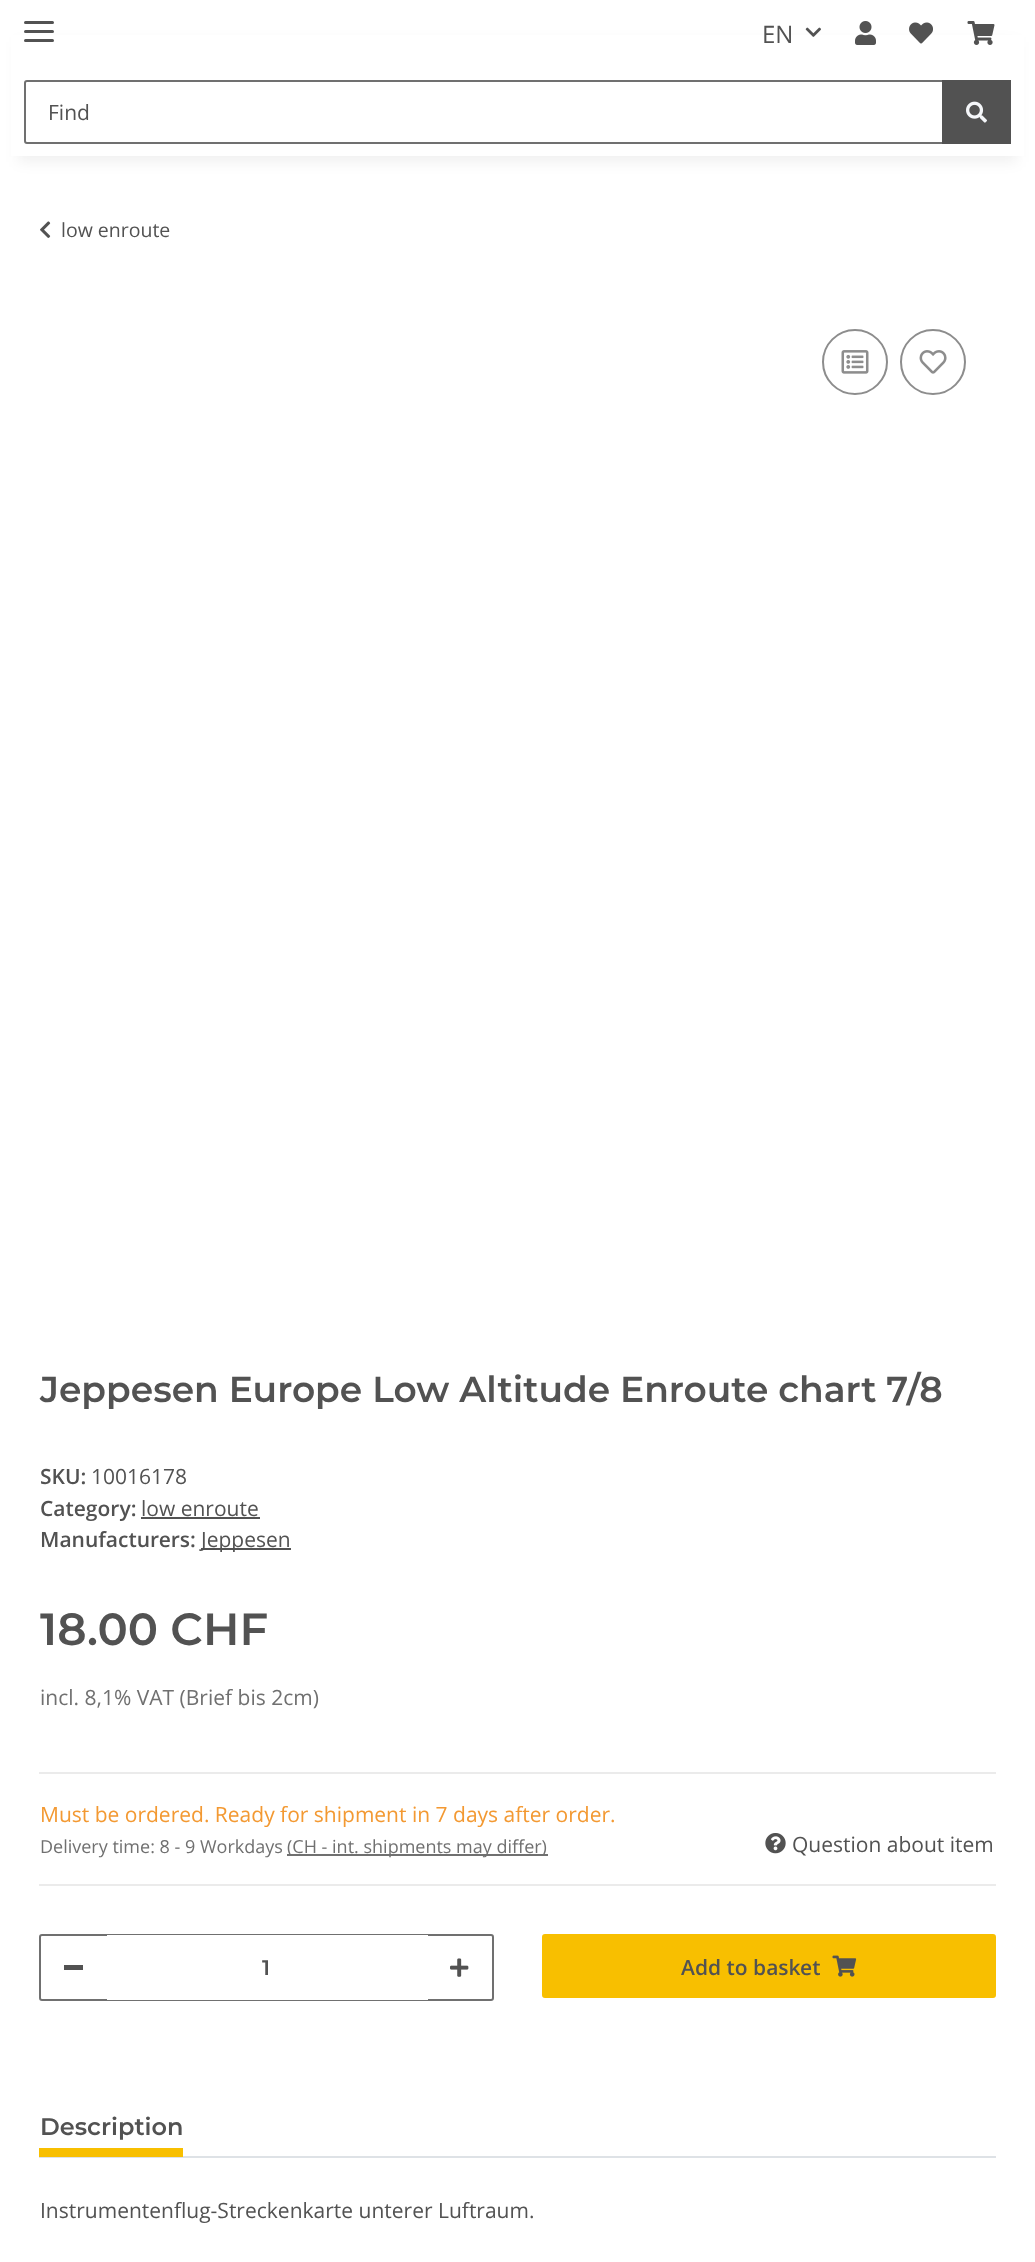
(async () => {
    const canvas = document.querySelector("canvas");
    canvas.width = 1035;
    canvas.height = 2262;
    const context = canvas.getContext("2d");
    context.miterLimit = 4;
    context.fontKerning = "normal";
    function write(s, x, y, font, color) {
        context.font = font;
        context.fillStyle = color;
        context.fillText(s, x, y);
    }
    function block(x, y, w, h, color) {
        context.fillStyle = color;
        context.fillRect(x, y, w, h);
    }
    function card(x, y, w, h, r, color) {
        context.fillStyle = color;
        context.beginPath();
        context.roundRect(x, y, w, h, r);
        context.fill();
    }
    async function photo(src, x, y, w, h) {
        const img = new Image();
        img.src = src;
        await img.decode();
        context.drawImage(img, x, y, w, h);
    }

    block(0, 0, 1035, 2262, "rgb(255, 255, 255)");
    context.fillStyle = "rgba(0, 0, 0, 0.06)";
    context.filter = "blur(7px)";
    context.beginPath();
    context.rect(18, 42, 999, 120);
    context.fill();
    context.filter = "none";
    block(11, 35, 1013, 121, "rgb(255, 255, 255)");
    card(24, 30, 30, 3, 1.5, "rgb(82, 82, 82)");
    card(24, 21, 30, 3, 1.5, "rgb(82, 82, 82)");
    card(24, 39, 30, 3, 1.5, "rgb(82, 82, 82)");
    write("EN", 762, 43, "24px Open Sans", "rgb(82, 82, 82)");
    await photo("media/1.png", 805, 27, 16, 10);
    await photo("media/2.png", 855, 21, 21, 24);
    await photo("media/3.png", 909, 22, 24, 22);
    await photo("media/4.png", 967, 21, 28, 24);
    context.beginPath();
    context.roundRect(25, 81, 918, 62, [2, 0, 0, 2]);
    context.strokeStyle = "rgb(112, 112, 112)";
    context.lineWidth = 2;
    context.stroke();
    write("Find", 48, 120, "21px Open Sans", "rgb(82, 82, 82)");
    block(942, 80, 69, 64, "rgb(82, 82, 82)");
    await photo("media/5.png", 966, 101, 21, 22);
    await photo("media/6.png", 40, 221, 11, 17);
    write("low enroute", 61, 237, "19.5px Open Sans", "rgb(82, 82, 82)");
    context.beginPath();
    context.arc(855, 362, 32, 0, Math.PI * 2);
    context.strokeStyle = "rgb(141, 141, 141)";
    context.stroke();
    await photo("media/7.png", 841, 350, 28, 24);
    context.beginPath();
    context.arc(933, 362, 32, 0, Math.PI * 2);
    context.stroke();
    await photo("media/8.png", 919, 350, 28, 24);
    write("Jeppesen Europe Low Altitude Enroute chart 7/8", 40, 1402, "600 36px Montserrat", "rgb(82, 82, 82)");
    write("SKU:", 40, 1484, "600 21px Open Sans", "rgb(82, 82, 82)");
    write("10016178", 91, 1484, "21px Open Sans", "rgb(82, 82, 82)");
    write("Category:", 40, 1516, "600 21px Open Sans", "rgb(82, 82, 82)");
    write("low enroute", 141, 1516, "21px Open Sans", "rgb(82, 82, 82)");
    block(141, 1517, 119, 2, "rgb(82, 82, 82)");
    write("Manufacturers:", 40, 1547, "600 21px Open Sans", "rgb(82, 82, 82)");
    block(201, 1548, 90, 2, "rgb(82, 82, 82)");
    write("Jeppesen", 201, 1547, "21px Open Sans", "rgb(82, 82, 82)");
    write("18.00 CHF", 40, 1645, "600 45px Montserrat", "rgb(82, 82, 82)");
    write("incl. 8,1% VAT (Brief bis 2cm)", 40, 1705, "21px Open Sans", "rgb(112, 112, 112)");
    block(39, 1772, 957, 2, "rgb(235, 235, 235)");
    block(39, 1884, 957, 2, "rgb(235, 235, 235)");
    write("Must be ordered. Ready for shipment in 7 days after order.", 40, 1822, "21px Open Sans", "rgb(243, 153, 50)");
    write("Delivery time: 8 - 9 Workdays", 40, 1853, "18px Open Sans", "rgb(112, 112, 112)");
    block(287, 1854, 261, 2, "rgb(112, 112, 112)");
    write("(CH - int. shipments may differ)", 287, 1853, "18px Open Sans", "rgb(112, 112, 112)");
    await photo("media/9.png", 765, 1833, 21, 21);
    write("Question about item", 792, 1852, "21px Open Sans", "rgb(82, 82, 82)");
    context.beginPath();
    context.roundRect(40, 1935, 453, 65, 2);
    context.strokeStyle = "rgb(112, 112, 112)";
    context.stroke();
    block(64, 1965, 19, 5, "rgb(82, 82, 82)");
    block(107, 1935, 321, 65, "rgb(255, 255, 255)");
    write("1", 262, 1975, "600 21px Montserrat", "rgb(82, 82, 82)");
    await photo("media/10.png", 450, 1958, 19, 19);
    context.fillStyle = "rgb(248, 191, 0)";
    context.beginPath();
    context.roundRect(543, 1935, 452, 62, 2);
    context.fill();
    context.strokeStyle = "rgb(248, 191, 0)";
    context.stroke();
    write("Add to basket", 681, 1975, "600 21px Open Sans", "rgb(82, 82, 82)");
    await photo("media/11.png", 832, 1955, 25, 22);
    block(39, 2156, 957, 2, "rgb(222, 226, 230)");
    write("Description", 40, 2135, "600 24px Montserrat", "rgb(82, 82, 82)");
    block(39, 2148, 144, 9, "rgb(248, 191, 0)");
    write("Instrumentenflug-Streckenkarte unterer Luftraum.", 40, 2218, "21px Open Sans", "rgb(82, 82, 82)");
})();
